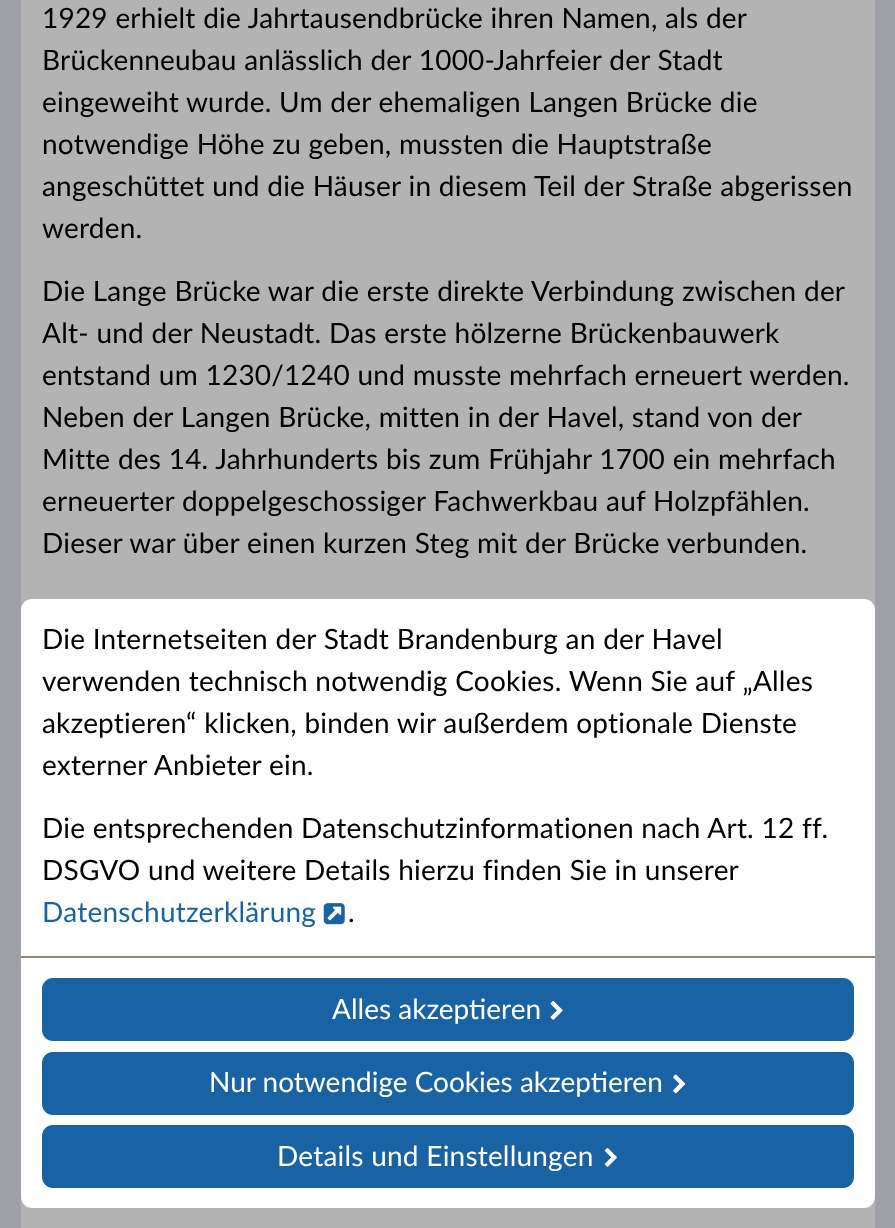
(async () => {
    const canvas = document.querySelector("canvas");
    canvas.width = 895;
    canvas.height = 1228;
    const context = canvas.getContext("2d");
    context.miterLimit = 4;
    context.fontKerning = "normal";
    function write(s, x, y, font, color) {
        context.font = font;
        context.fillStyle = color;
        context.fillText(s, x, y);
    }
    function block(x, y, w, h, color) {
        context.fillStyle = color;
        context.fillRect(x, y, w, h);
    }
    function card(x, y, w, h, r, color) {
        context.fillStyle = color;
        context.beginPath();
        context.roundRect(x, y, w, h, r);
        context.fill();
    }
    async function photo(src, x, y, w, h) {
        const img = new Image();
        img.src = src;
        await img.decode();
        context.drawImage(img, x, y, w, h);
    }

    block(0, 0, 895, 1228, "rgb(158, 161, 165)");
    block(21, 0, 854, 1228, "rgb(179, 179, 179)");
    context.letterSpacing = "0.2px";
    context.wordSpacing = "0.25px";
    write("1929 erhielt die Jahrtausendbrücke ihren Namen, als der", 42, 28, "28px Lato", "rgb(0, 0, 0)");
    write("Brückenneubau anlässlich der 1000-Jahrfeier der Stadt", 42, 70, "28px Lato", "rgb(0, 0, 0)");
    write("eingeweiht wurde. Um der ehemaligen Langen Brücke die", 42, 112, "28px Lato", "rgb(0, 0, 0)");
    write("notwendige Höhe zu geben, mussten die Hauptstraße", 42, 154, "28px Lato", "rgb(0, 0, 0)");
    write("angeschüttet und die Häuser in diesem Teil der Straße abgerissen", 42, 196, "28px Lato", "rgb(0, 0, 0)");
    context.wordSpacing = "0px";
    write("werden.", 42, 238, "28px Lato", "rgb(0, 0, 0)");
    context.wordSpacing = "0.25px";
    write("Die Lange Brücke war die erste direkte Verbindung zwischen der", 42, 301, "28px Lato", "rgb(0, 0, 0)");
    write("Alt- und der Neustadt. Das erste hölzerne Brückenbauwerk", 42, 343, "28px Lato", "rgb(0, 0, 0)");
    write("entstand um 1230/1240 und musste mehrfach erneuert werden.", 42, 385, "28px Lato", "rgb(0, 0, 0)");
    write("Neben der Langen Brücke, mitten in der Havel, stand von der", 42, 427, "28px Lato", "rgb(0, 0, 0)");
    write("Mitte des 14. Jahrhunderts bis zum Frühjahr 1700 ein mehrfach", 42, 469, "28px Lato", "rgb(0, 0, 0)");
    write("erneuerter doppelgeschossiger Fachwerkbau auf Holzpfählen.", 42, 511, "28px Lato", "rgb(0, 0, 0)");
    write("Dieser war über einen kurzen Steg mit der Brücke verbunden.", 42, 553, "28px Lato", "rgb(0, 0, 0)");
    context.fillStyle = "rgb(255, 255, 255)";
    context.beginPath();
    context.roundRect(21, 599, 854, 357, [11, 11, 0, 0]);
    context.fill();
    write("Die Internetseiten der Stadt Brandenburg an der Havel", 42, 649, "28px Lato", "rgb(0, 0, 0)");
    write("verwenden technisch notwendig Cookies. Wenn Sie auf „Alles", 42, 691, "28px Lato", "rgb(0, 0, 0)");
    write("akzeptieren“ klicken, binden wir außerdem optionale Dienste", 42, 733, "28px Lato", "rgb(0, 0, 0)");
    write("externer Anbieter ein.", 42, 775, "28px Lato", "rgb(0, 0, 0)");
    write("Die entsprechenden Datenschutzinformationen nach Art. 12 ff.", 42, 838, "28px Lato", "rgb(0, 0, 0)");
    write("DSGVO und weitere Details hierzu finden Sie in unserer", 42, 880, "28px Lato", "rgb(0, 0, 0)");
    context.wordSpacing = "0px";
    write("Datenschutzerklärung", 42, 922, "28px Lato", "rgb(25, 99, 164)");
    await photo("media/1.png", 323, 903, 22, 22);
    write(".", 348, 922, "28px Lato", "rgb(0, 0, 0)");
    context.fillStyle = "rgb(255, 255, 255)";
    context.beginPath();
    context.roundRect(21, 956, 854, 252, [0, 0, 11, 11]);
    context.fill();
    block(21, 956, 854, 2, "rgb(150, 134, 109)");
    card(42, 978, 812, 63, 11, "rgb(25, 99, 164)");
    context.letterSpacing = "0px";
    write("Alles akzeptieren", 332, 1019, "28px Lato", "rgb(255, 255, 255)");
    await photo("media/2.png", 550, 1001, 13, 19);
    card(42, 1052, 812, 63, 11, "rgb(25, 99, 164)");
    write("Nur notwendige Cookies akzeptieren", 209, 1092, "28px Lato", "rgb(255, 255, 255)");
    await photo("media/3.png", 673, 1074, 13, 20);
    card(42, 1125, 812, 63, 11, "rgb(25, 99, 164)");
    context.letterSpacing = "0.2px";
    context.wordSpacing = "0.25px";
    write("Details und Einstellungen", 277, 1166, "28px Lato", "rgb(255, 255, 255)");
    await photo("media/4.png", 604, 1148, 13, 19);
})();
